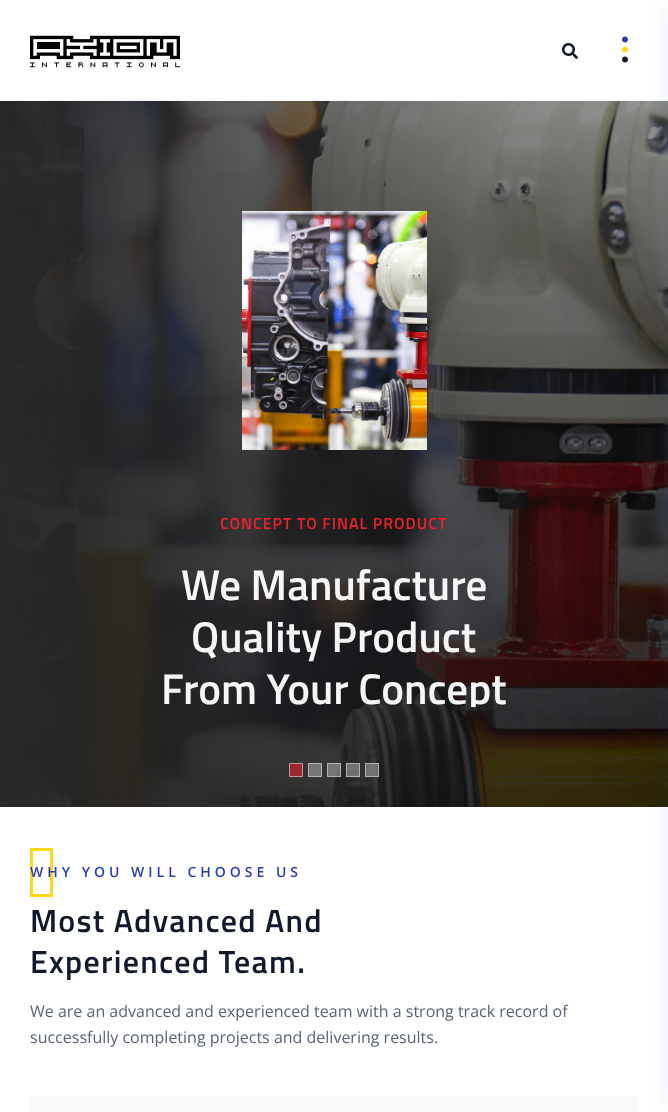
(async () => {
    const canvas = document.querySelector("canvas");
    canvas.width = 668;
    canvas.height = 1112;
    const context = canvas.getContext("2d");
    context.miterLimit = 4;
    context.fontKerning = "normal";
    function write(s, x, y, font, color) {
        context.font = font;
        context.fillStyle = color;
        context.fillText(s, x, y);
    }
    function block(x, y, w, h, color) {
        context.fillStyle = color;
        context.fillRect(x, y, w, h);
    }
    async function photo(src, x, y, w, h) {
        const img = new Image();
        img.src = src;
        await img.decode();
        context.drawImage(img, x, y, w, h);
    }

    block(0, 0, 668, 1112, "rgb(255, 255, 255)");
    block(0, 100, 668, 1, "rgb(247, 248, 249)");
    await photo("media/1.png", 30, 35, 150, 33);
    await photo("media/2.png", 562, 43, 16, 16);
    context.fillStyle = "rgb(18, 25, 45)";
    context.beginPath();
    context.moveTo(625, 62.5);
    context.bezierCurveTo(621, 62.5, 621, 56.5, 625, 56.5);
    context.bezierCurveTo(629, 56.5, 629, 62.5, 625, 62.5);
    context.closePath();
    context.fill();
    context.fillStyle = "rgb(42, 60, 183)";
    context.beginPath();
    context.moveTo(625, 42.5);
    context.bezierCurveTo(621, 42.5, 621, 36.5, 625, 36.5);
    context.bezierCurveTo(629, 36.5, 629, 42.5, 625, 42.5);
    context.closePath();
    context.fill();
    context.fillStyle = "rgb(255, 216, 28)";
    context.beginPath();
    context.moveTo(625, 52.5);
    context.bezierCurveTo(621, 52.5, 621, 46.5, 625, 46.5);
    context.bezierCurveTo(629, 46.5, 629, 52.5, 625, 52.5);
    context.closePath();
    context.fill();
    await photo("media/3.png", 0, 101, 668, 706);
    await photo("media/4.png", 242, 211, 185, 239);
    context.letterSpacing = "1px";
    write("CONCEPT TO FINAL PRODUCT", 220, 529, "600 16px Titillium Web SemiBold", "rgb(238, 32, 42)");
    context.letterSpacing = "0px";
    write("We Manufacture", 181, 600, "600 43px Titillium Web SemiBold", "rgb(246, 246, 246)");
    write("Quality Product", 191, 652, "600 43px Titillium Web SemiBold", "rgb(246, 246, 246)");
    context.save();
    context.beginPath();
    context.rect(20, 551, 628, 156);
    context.clip();
    write("From Your Concept", 161, 704, "600 43px Titillium Web SemiBold", "rgb(246, 246, 246)");
    context.restore();
    context.fillStyle = "rgba(238, 32, 42, 0.56)";
    context.beginPath();
    context.rect(289.5, 763.5, 13, 13);
    context.fill();
    context.strokeStyle = "rgb(197, 147, 149)";
    context.stroke();
    context.fillStyle = "rgba(170, 170, 170, 0.56)";
    context.beginPath();
    context.rect(308.5, 763.5, 13, 13);
    context.fill();
    context.strokeStyle = "rgb(181, 181, 181)";
    context.stroke();
    block(327, 763, 14, 14, "rgba(170, 170, 170, 0.56)");
    context.strokeStyle = "rgba(229, 229, 229, 0.56)";
    context.strokeRect(327.5, 763.5, 13, 13);
    block(346, 763, 14, 14, "rgba(170, 170, 170, 0.56)");
    context.strokeRect(346.5, 763.5, 13, 13);
    block(365, 763, 14, 14, "rgba(170, 170, 170, 0.56)");
    context.strokeRect(365.5, 763.5, 13, 13);
    context.strokeStyle = "rgb(255, 216, 28)";
    context.lineWidth = 3;
    context.strokeRect(31.5, 849.5, 20, 46);
    context.letterSpacing = "4px";
    write("WHY YOU WILL CHOOSE US", 30, 877, "600 14px Open Sans", "rgb(42, 60, 183)");
    context.letterSpacing = "1.25px";
    write("Most Advanced And", 30, 932, "600 32px Titillium Web SemiBold", "rgb(18, 25, 45)");
    write("Experienced Team.", 30, 973, "600 32px Titillium Web SemiBold", "rgb(18, 25, 45)");
    context.letterSpacing = "0px";
    write("We are an advanced and experienced team with a strong track record of", 30, 1017, "16px Open Sans", "rgb(89, 100, 117)");
    write("successfully completing projects and delivering results.", 30, 1043, "16px Open Sans", "rgb(89, 100, 117)");
    block(30, 1096, 608, 16, "rgb(247, 248, 249)");
    context.fillStyle = "rgba(44, 101, 144, 0.1)";
    context.filter = "blur(10px)";
    context.beginPath();
    context.rect(668, 0, 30, 1112);
    context.fill();
    context.filter = "none";
})();
